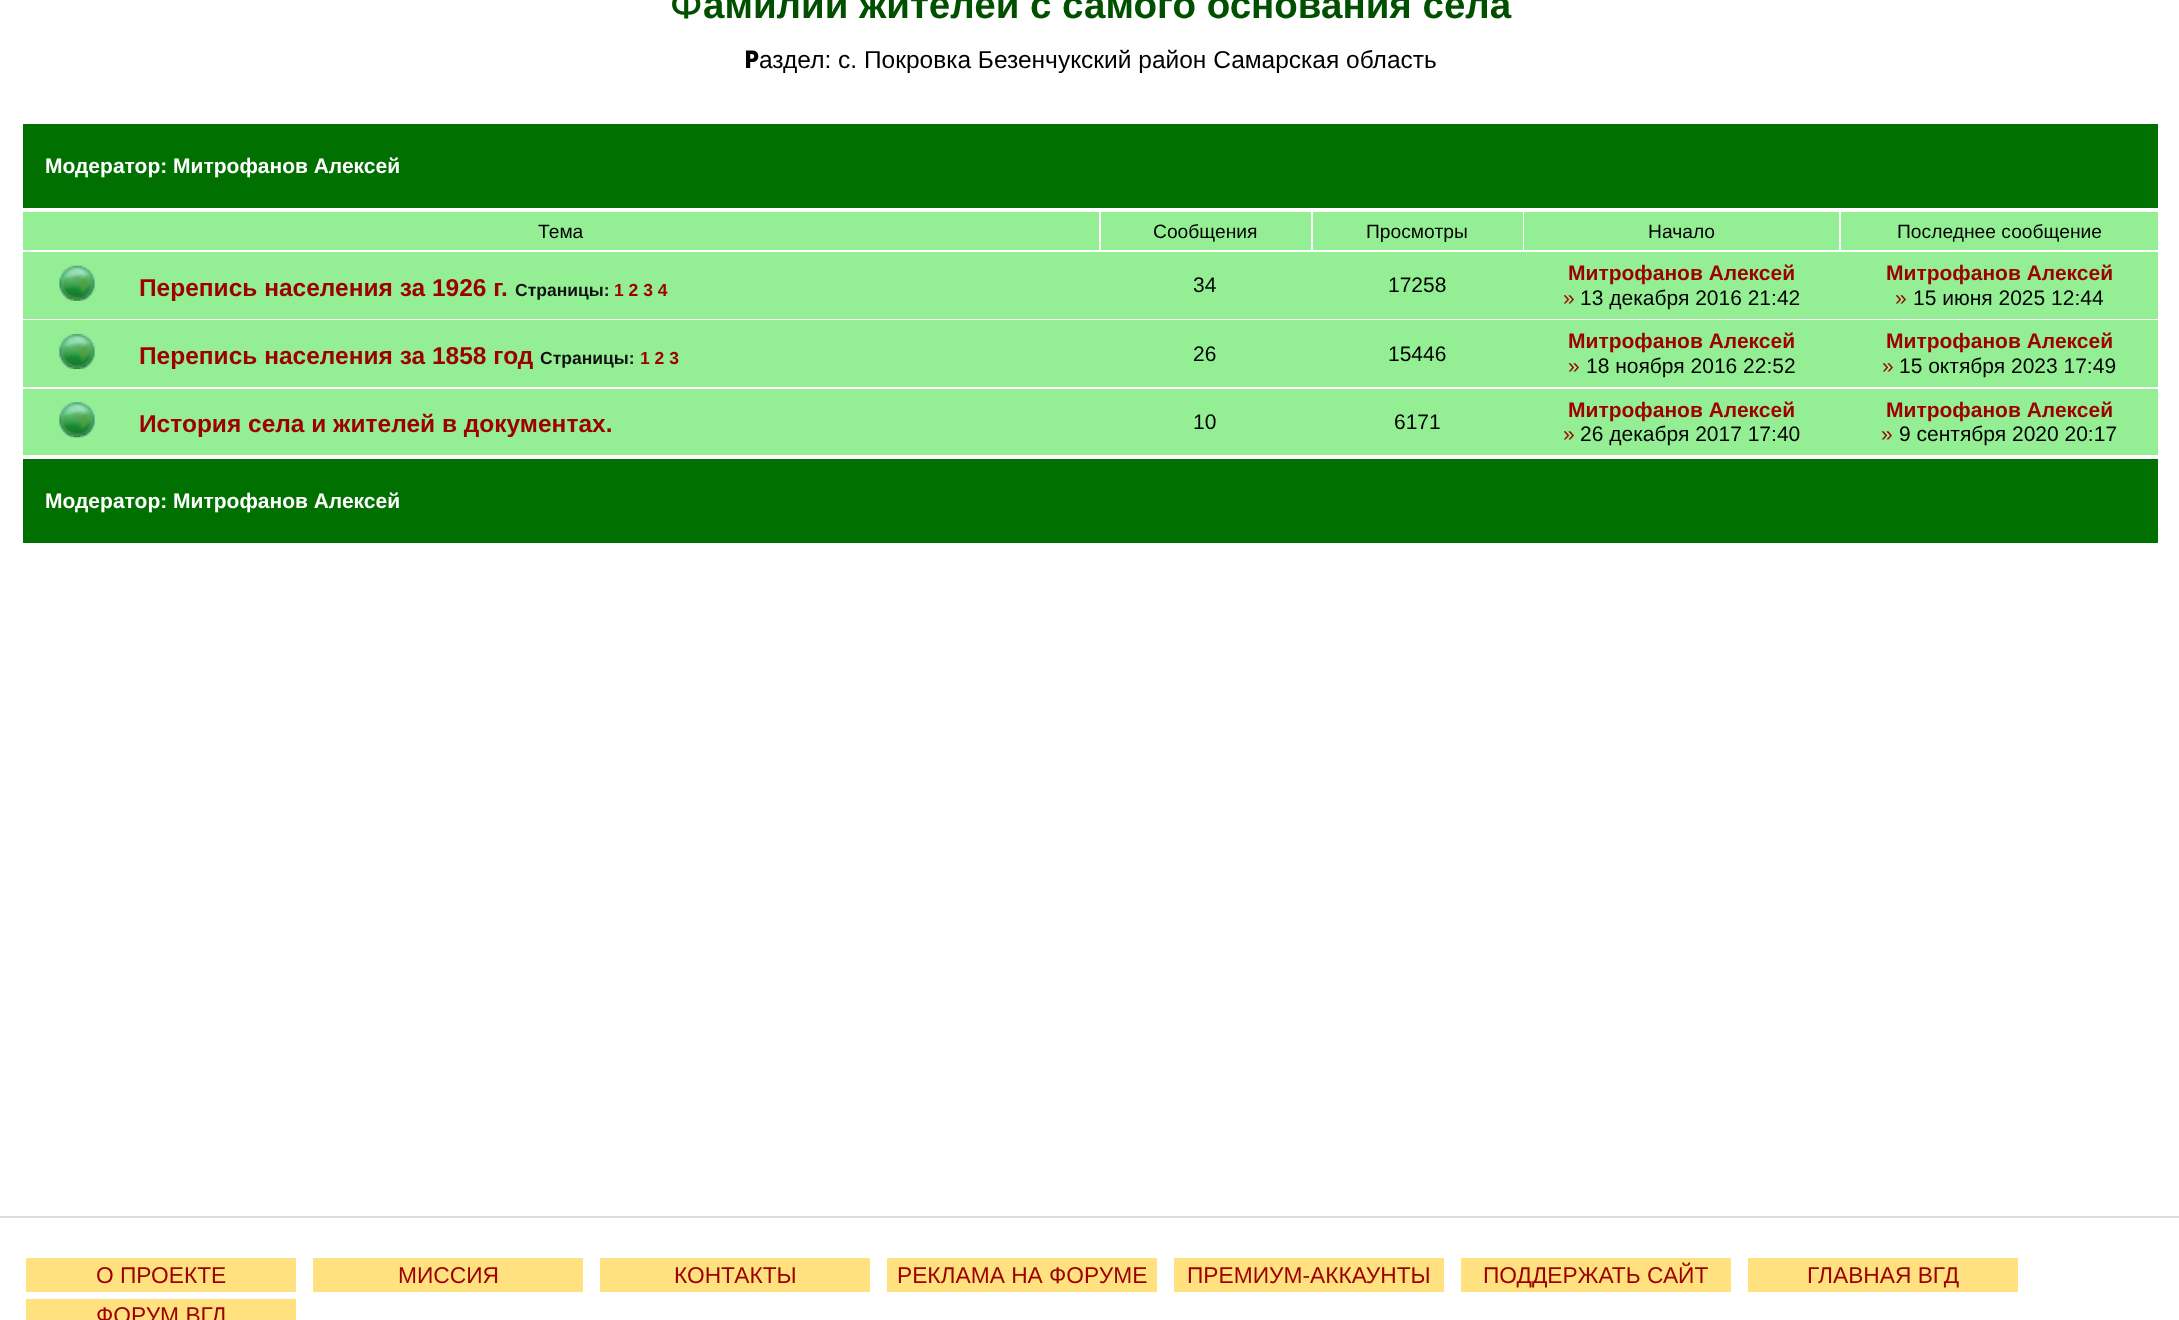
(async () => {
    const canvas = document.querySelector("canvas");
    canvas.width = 2179;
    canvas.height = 1320;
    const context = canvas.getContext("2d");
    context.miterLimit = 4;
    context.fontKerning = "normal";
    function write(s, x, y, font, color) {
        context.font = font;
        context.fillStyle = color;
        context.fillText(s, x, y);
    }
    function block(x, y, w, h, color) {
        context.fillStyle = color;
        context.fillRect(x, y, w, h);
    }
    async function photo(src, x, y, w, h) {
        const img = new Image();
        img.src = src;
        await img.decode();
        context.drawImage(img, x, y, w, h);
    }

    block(0, 0, 2179, 1320, "rgb(255, 255, 255)");
    write("Ф", 670, 18, "500 38.5px Noto Sans", "rgb(0, 80, 0)");
    write("амилии жителей с самого основания села", 703, 18, "bold 38.5px Liberation Sans", "rgb(0, 80, 0)");
    write("Р", 744, 68, "800 24.5px Noto Sans", "rgb(0, 0, 0)");
    write("аздел: с. Покровка Безенчукский район Самарская область", 759, 68, "24.5px Liberation Sans", "rgb(0, 0, 0)");
    block(23, 124, 2135, 84, "rgb(0, 112, 0)");
    write("Модератор: Митрофанов Алексей", 45, 173, "bold 21px Liberation Sans", "rgb(255, 255, 255)");
    block(23, 212, 1076, 38, "rgb(148, 238, 148)");
    write("Тема", 538, 238, "19.25px Liberation Sans", "rgb(0, 0, 0)");
    block(1101, 212, 210, 38, "rgb(148, 238, 148)");
    write("Сообщения", 1153, 238, "19.25px Liberation Sans", "rgb(0, 0, 0)");
    block(1313, 212, 210, 38, "rgb(148, 238, 148)");
    write("Просмотры", 1366, 238, "19.25px Liberation Sans", "rgb(0, 0, 0)");
    block(1524, 212, 315, 38, "rgb(148, 238, 148)");
    write("Начало", 1648, 238, "19.25px Liberation Sans", "rgb(0, 0, 0)");
    block(1841, 212, 317, 38, "rgb(148, 238, 148)");
    write("Последнее сообщение", 1897, 238, "19.25px Liberation Sans", "rgb(0, 0, 0)");
    block(23, 252, 2135, 67, "rgb(148, 238, 148)");
    await photo("media/1.png", 59, 265, 36, 36);
    write("Перепись населения за 1926 г.", 139, 296, "bold 24.5px Liberation Sans", "rgb(156, 0, 0)");
    write("Страницы:", 515, 296, "bold 17.5px Liberation Sans", "rgb(17, 17, 17)");
    write("1 2 3 4", 614, 296, "bold 17.5px Liberation Sans", "rgb(156, 0, 0)");
    write("34", 1193, 292, "21px Liberation Sans", "rgb(0, 0, 0)");
    write("17258", 1388, 292, "21px Liberation Sans", "rgb(0, 0, 0)");
    write("Митрофанов Алексей", 1568, 280, "bold 21px Liberation Sans", "rgb(156, 0, 0)");
    write("»", 1563, 305, "21px Liberation Sans", "rgb(156, 0, 0)");
    write("13 декабря 2016 21:42", 1580, 305, "21px Liberation Sans", "rgb(0, 0, 0)");
    write("Митрофанов Алексей", 1886, 280, "bold 21px Liberation Sans", "rgb(156, 0, 0)");
    write("»", 1895, 305, "21px Liberation Sans", "rgb(156, 0, 0)");
    write("15 июня 2025 12:44", 1913, 305, "21px Liberation Sans", "rgb(0, 0, 0)");
    block(23, 320, 2135, 67, "rgb(148, 238, 148)");
    await photo("media/2.png", 59, 334, 36, 35);
    write("Перепись населения за 1858 год", 139, 364, "bold 24.5px Liberation Sans", "rgb(156, 0, 0)");
    write("Страницы:", 540, 364, "bold 17.5px Liberation Sans", "rgb(17, 17, 17)");
    write("1 2 3", 640, 364, "bold 17.5px Liberation Sans", "rgb(156, 0, 0)");
    write("26", 1193, 361, "21px Liberation Sans", "rgb(0, 0, 0)");
    write("15446", 1388, 361, "21px Liberation Sans", "rgb(0, 0, 0)");
    write("Митрофанов Алексей", 1568, 348, "bold 21px Liberation Sans", "rgb(156, 0, 0)");
    write("»", 1568, 373, "21px Liberation Sans", "rgb(156, 0, 0)");
    write("18 ноября 2016 22:52", 1586, 373, "21px Liberation Sans", "rgb(0, 0, 0)");
    write("Митрофанов Алексей", 1886, 348, "bold 21px Liberation Sans", "rgb(156, 0, 0)");
    write("»", 1882, 373, "21px Liberation Sans", "rgb(156, 0, 0)");
    write("15 октября 2023 17:49", 1899, 373, "21px Liberation Sans", "rgb(0, 0, 0)");
    block(23, 389, 2135, 66, "rgb(148, 238, 148)");
    await photo("media/3.png", 59, 402, 36, 36);
    write("История села и жителей в документах.", 139, 432, "bold 24.5px Liberation Sans", "rgb(156, 0, 0)");
    write("10", 1193, 429, "21px Liberation Sans", "rgb(0, 0, 0)");
    write("6171", 1394, 429, "21px Liberation Sans", "rgb(0, 0, 0)");
    write("Митрофанов Алексей", 1568, 417, "bold 21px Liberation Sans", "rgb(156, 0, 0)");
    write("»", 1563, 441, "21px Liberation Sans", "rgb(156, 0, 0)");
    write("26 декабря 2017 17:40", 1580, 441, "21px Liberation Sans", "rgb(0, 0, 0)");
    write("Митрофанов Алексей", 1886, 417, "bold 21px Liberation Sans", "rgb(156, 0, 0)");
    write("»", 1881, 441, "21px Liberation Sans", "rgb(156, 0, 0)");
    write("9 сентября 2020 20:17", 1899, 441, "21px Liberation Sans", "rgb(0, 0, 0)");
    block(23, 459, 2135, 84, "rgb(0, 112, 0)");
    write("Модератор: Митрофанов Алексей", 45, 508, "bold 21px Liberation Sans", "rgb(255, 255, 255)");
    block(0, 1216, 2179, 2, "rgb(221, 221, 221)");
    block(26, 1258, 270, 34, "rgb(255, 225, 127)");
    write("О ПРОЕКТЕ", 96, 1283, "22.75px Liberation Sans", "rgb(156, 0, 0)");
    block(313, 1258, 270, 34, "rgb(255, 225, 127)");
    write("МИССИЯ", 398, 1283, "22.75px Liberation Sans", "rgb(156, 0, 0)");
    block(600, 1258, 270, 34, "rgb(255, 225, 127)");
    write("КОНТАКТЫ", 674, 1283, "22.75px Liberation Sans", "rgb(156, 0, 0)");
    block(887, 1258, 270, 34, "rgb(255, 225, 127)");
    write("РЕКЛАМА НА ФОРУМЕ", 897, 1283, "22.75px Liberation Sans", "rgb(156, 0, 0)");
    block(1174, 1258, 270, 34, "rgb(255, 225, 127)");
    write("ПРЕМИУМ-АККАУНТЫ", 1187, 1283, "22.75px Liberation Sans", "rgb(156, 0, 0)");
    block(1461, 1258, 270, 34, "rgb(255, 225, 127)");
    write("ПОДДЕРЖАТЬ САЙТ", 1483, 1283, "22.75px Liberation Sans", "rgb(156, 0, 0)");
    block(1748, 1258, 270, 34, "rgb(255, 225, 127)");
    write("ГЛАВНАЯ ВГД", 1807, 1283, "22.75px Liberation Sans", "rgb(156, 0, 0)");
    block(26, 1299, 270, 21, "rgb(255, 225, 127)");
    write("ФОРУМ ВГД", 96, 1323, "22.75px Liberation Sans", "rgb(156, 0, 0)");
})();
